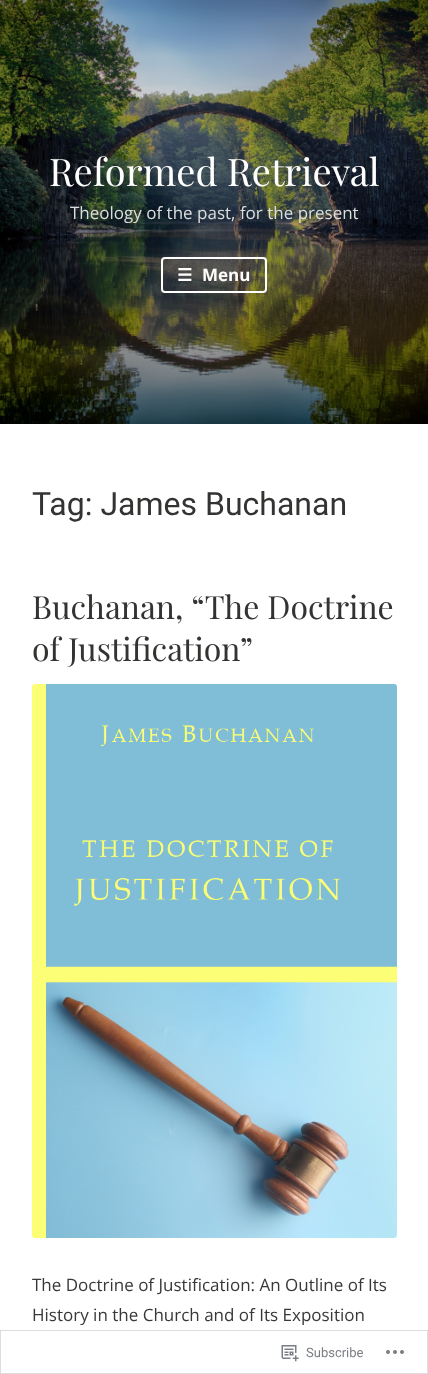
(async () => {
    const canvas = document.querySelector("canvas");
    canvas.width = 428;
    canvas.height = 1374;
    const context = canvas.getContext("2d");
    context.miterLimit = 4;
    context.fontKerning = "normal";
    function write(s, x, y, font, color) {
        context.font = font;
        context.fillStyle = color;
        context.fillText(s, x, y);
    }
    function block(x, y, w, h, color) {
        context.fillStyle = color;
        context.fillRect(x, y, w, h);
    }
    async function photo(src, x, y, w, h) {
        const img = new Image();
        img.src = src;
        await img.decode();
        context.drawImage(img, x, y, w, h);
    }

    block(0, 0, 428, 1374, "rgb(255, 255, 255)");
    await photo("media/1.png", 0, 0, 428, 424);
    write("Reformed Retrieval", 49, 186, "38px Playfair Display", "rgb(255, 255, 255)");
    write("Theology of the past, for the present", 70, 219, "17px Open Sans", "rgb(220, 222, 222)");
    context.beginPath();
    context.roundRect(162, 258, 104, 34, 3);
    context.strokeStyle = "rgb(255, 255, 255)";
    context.lineWidth = 2;
    context.stroke();
    write("☰", 177, 281, "bold 17px DejaVu Sans", "rgb(255, 255, 255)");
    write("Menu", 202, 281, "bold 17px Open Sans", "rgb(255, 255, 255)");
    write("Tag: James Buchanan", 32, 515, "32px Roboto", "rgb(51, 51, 50)");
    write("Buchanan, “The Doctrine", 32, 619, "32px Playfair Display", "rgb(51, 51, 50)");
    write("of Justification”", 32, 661, "32px Playfair Display", "rgb(51, 51, 50)");
    await photo("media/2.png", 32, 684, 365, 554);
    write("The Doctrine of Justification: An Outline of Its", 32, 1291, "17px Open Sans", "rgb(56, 56, 56)");
    write("History in the Church and of Its Exposition", 32, 1321, "17px Open Sans", "rgb(56, 56, 56)");
    context.strokeStyle = "rgba(220, 220, 222, 0.98)";
    context.lineWidth = 1;
    context.strokeRect(0.5, 1330.5, 427, 43);
    await photo("media/3.png", 281, 1345, 18, 17);
    write("Subscribe", 306, 1357, "13px Roboto", "rgb(123, 127, 132)");
    await photo("media/4.png", 386, 1350, 18, 4);
})();
